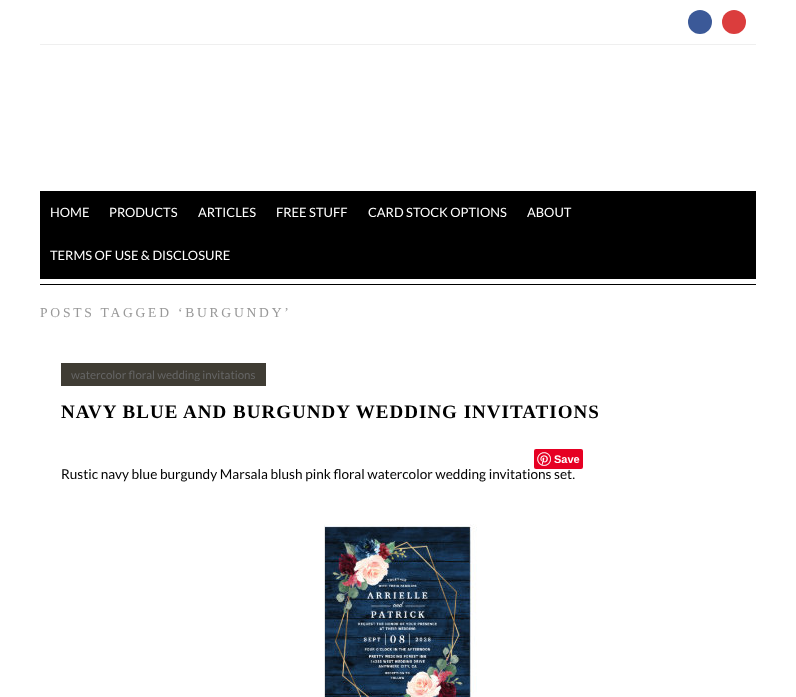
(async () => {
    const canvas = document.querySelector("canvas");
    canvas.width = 796;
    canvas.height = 697;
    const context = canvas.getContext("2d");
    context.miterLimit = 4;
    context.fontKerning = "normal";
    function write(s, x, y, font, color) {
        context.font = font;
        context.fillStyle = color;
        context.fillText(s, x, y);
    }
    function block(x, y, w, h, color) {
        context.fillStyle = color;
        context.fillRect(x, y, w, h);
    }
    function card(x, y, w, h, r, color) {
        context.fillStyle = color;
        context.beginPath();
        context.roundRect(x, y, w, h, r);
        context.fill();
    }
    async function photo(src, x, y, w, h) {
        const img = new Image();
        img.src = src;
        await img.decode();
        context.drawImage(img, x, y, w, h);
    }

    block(0, 0, 796, 697, "rgb(255, 255, 255)");
    block(40, 284, 716, 1, "rgb(0, 0, 0)");
    block(40, 44, 716, 1, "rgb(239, 239, 239)");
    context.fillStyle = "rgb(59, 89, 152)";
    context.beginPath();
    context.arc(700, 22, 12, 0, Math.PI * 2);
    context.fill();
    context.fillStyle = "rgb(219, 61, 61)";
    context.beginPath();
    context.arc(734, 22, 12, 0, Math.PI * 2);
    context.fill();
    block(40, 191, 716, 88, "rgb(0, 0, 0)");
    write("HOME", 50, 217, "12.9px Lato", "rgb(255, 255, 255)");
    write("PRODUCTS", 109, 217, "12.9px Lato", "rgb(255, 255, 255)");
    write("ARTICLES", 198, 217, "12.9px Lato", "rgb(255, 255, 255)");
    write("FREE STUFF", 276, 217, "12.9px Lato", "rgb(255, 255, 255)");
    write("CARD STOCK OPTIONS", 368, 217, "12.9px Lato", "rgb(255, 255, 255)");
    write("ABOUT", 527, 217, "12.9px Lato", "rgb(255, 255, 255)");
    write("TERMS OF USE & DISCLOSURE", 50, 260, "12.9px Lato", "rgb(255, 255, 255)");
    context.letterSpacing = "2.75px";
    write("POSTS TAGGED ‘BURGUNDY’", 40, 317, "13.6px Liberation Serif", "rgb(153, 153, 153)");
    block(61, 363, 205, 23, "rgb(63, 60, 52)");
    context.letterSpacing = "0px";
    write("watercolor floral wedding invitations", 71, 379, "11.5px Lato", "rgb(102, 102, 102)");
    context.letterSpacing = "1px";
    write("NAVY BLUE AND BURGUNDY WEDDING INVITATIONS", 61, 418, "bold 19.05px Liberation Serif", "rgb(0, 0, 0)");
    card(534, 449, 49, 20, 2, "rgb(230, 0, 35)");
    await photo("media/1.png", 537, 452, 14, 14);
    context.letterSpacing = "0px";
    write("Save", 554, 463, "bold 11px Liberation Sans", "rgb(255, 255, 255)");
    write("Rustic navy blue burgundy Marsala blush pink floral watercolor wedding invitations set.", 61, 479, "13.6px Lato", "rgb(0, 0, 0)");
    await photo("media/2.png", 324, 524, 153, 173);
})();
